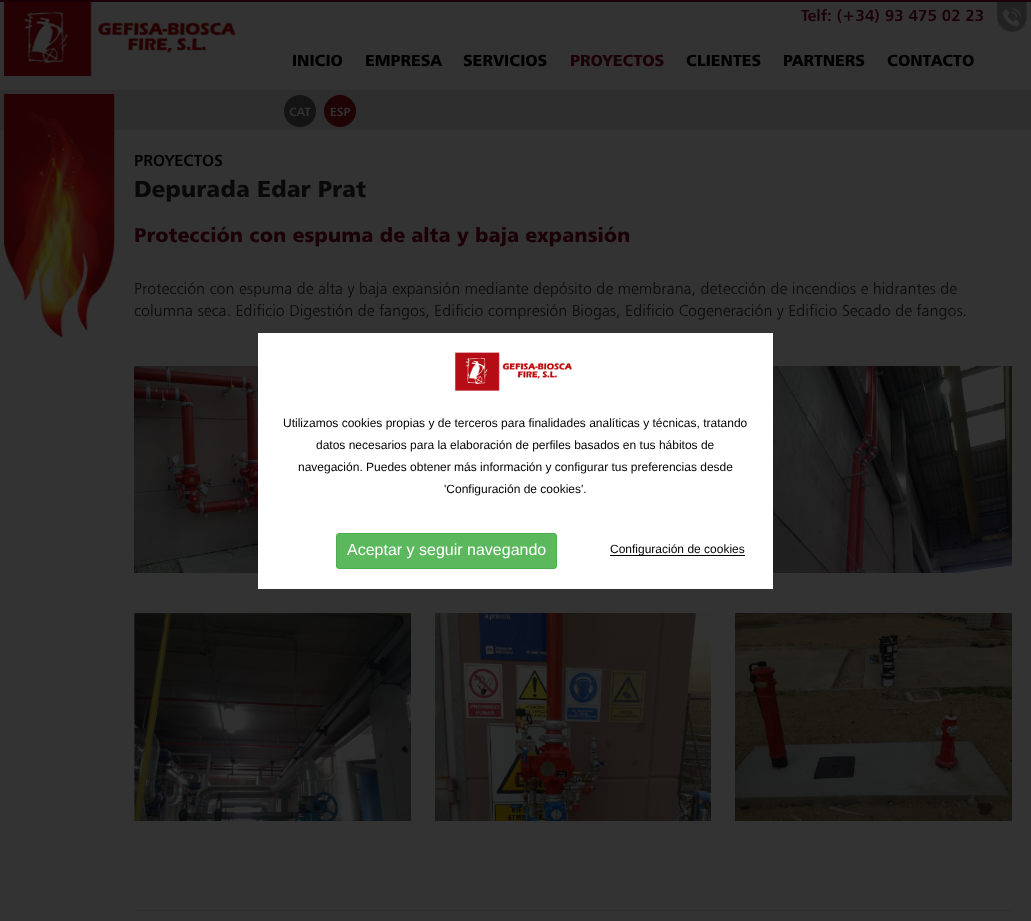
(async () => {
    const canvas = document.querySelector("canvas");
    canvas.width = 1031;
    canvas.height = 921;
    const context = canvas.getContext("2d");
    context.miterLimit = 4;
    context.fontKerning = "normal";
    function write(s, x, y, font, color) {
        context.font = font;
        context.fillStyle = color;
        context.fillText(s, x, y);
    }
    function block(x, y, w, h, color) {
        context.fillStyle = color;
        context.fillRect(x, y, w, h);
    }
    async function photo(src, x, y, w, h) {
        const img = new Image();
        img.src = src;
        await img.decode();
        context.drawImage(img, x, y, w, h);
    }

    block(0, 0, 1031, 921, "rgb(51, 51, 51)");
    block(0, 0, 1031, 2, "rgb(27, 1, 7)");
    await photo("media/1.png", 4, 2, 233, 74);
    write("Telf: (+34) 93 475 02 23", 801, 21, "bold 16px 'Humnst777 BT'", "rgb(27, 1, 7)");
    await photo("media/2.png", 997, 2, 30, 30);
    write("INICIO", 292, 66, "900 16px 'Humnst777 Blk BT'", "rgb(0, 0, 0)");
    write("EMPRESA", 365, 66, "900 16px 'Humnst777 Blk BT'", "rgb(0, 0, 0)");
    write("SERVICIOS", 463, 66, "900 16px 'Humnst777 Blk BT'", "rgb(0, 0, 0)");
    write("PROYECTOS", 570, 66, "900 16px 'Humnst777 Blk BT'", "rgb(27, 1, 7)");
    write("CLIENTES", 686, 66, "900 16px 'Humnst777 Blk BT'", "rgb(0, 0, 0)");
    write("PARTNERS", 783, 66, "900 16px 'Humnst777 Blk BT'", "rgb(0, 0, 0)");
    write("CONTACTO", 887, 66, "900 16px 'Humnst777 Blk BT'", "rgb(0, 0, 0)");
    block(0, 90, 1031, 40, "rgb(46, 46, 46)");
    context.fillStyle = "rgb(20, 20, 20)";
    context.beginPath();
    context.arc(300, 111, 16, 0, Math.PI * 2);
    context.fill();
    write("CAT", 289, 116, "bold 12px 'Humnst777 BT'", "rgb(51, 51, 51)");
    context.fillStyle = "rgb(31, 4, 5)";
    context.beginPath();
    context.arc(340, 111, 16, 0, Math.PI * 2);
    context.fill();
    write("ESP", 330, 116, "bold 12px 'Humnst777 BT'", "rgb(51, 51, 51)");
    await photo("media/3.png", 4, 94, 111, 244);
    write("PROYECTOS", 134, 166, "bold 16px 'Humnst777 BT'", "rgb(0, 0, 0)");
    write("Depurada Edar Prat", 134, 197, "900 23px 'Humnst777 Blk BT'", "rgb(9, 9, 9)");
    write("Protección con espuma de alta y baja expansión", 134, 242, "900 20px 'Humnst777 Blk BT'", "rgb(27, 1, 7)");
    write("Protección con espuma de alta y baja expansión mediante depósito de membrana, detección de incendios e hidrantes de", 134, 294, "300 16px 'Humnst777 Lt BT'", "rgb(9, 9, 9)");
    write("columna seca. Edificio Digestión de fangos, Edificio compresión Biogas, Edificio Cogeneración y Edificio Secado de fangos.", 134, 316, "300 16px 'Humnst777 Lt BT'", "rgb(9, 9, 9)");
    await photo("media/4.png", 134, 366, 124, 207);
    await photo("media/5.png", 773, 366, 239, 207);
    await photo("media/6.png", 134, 613, 277, 208);
    await photo("media/7.png", 435, 613, 276, 208);
    await photo("media/8.png", 735, 613, 277, 208);
    block(134, 910, 878, 1, "rgb(46, 46, 46)");
    block(258, 333, 515, 256, "rgb(255, 255, 255)");
    await photo("media/9.png", 455, 352, 118, 39);
    write("Utilizamos cookies propias y de terceros para finalidades analíticas y técnicas, tratando", 283, 427, "12px Liberation Sans", "rgb(0, 0, 0)");
    write("datos necesarios para la elaboración de perfiles basados en tus hábitos de", 316, 449, "12px Liberation Sans", "rgb(0, 0, 0)");
    write("navegación. Puedes obtener más información y configurar tus preferencias desde", 298, 471, "12px Liberation Sans", "rgb(0, 0, 0)");
    write("'Configuración de cookies'.", 444, 493, "12px Liberation Sans", "rgb(0, 0, 0)");
    context.fillStyle = "rgb(92, 184, 92)";
    context.beginPath();
    context.roundRect(336.5, 533.5, 220, 35, 2.5);
    context.fill();
    context.strokeStyle = "rgb(76, 174, 76)";
    context.stroke();
    write("Aceptar y seguir navegando", 347, 555, "16px Liberation Sans", "rgb(255, 255, 255)");
    block(610, 555, 135, 1, "rgb(0, 0, 0)");
    write("Configuración de cookies", 610, 553, "12px Liberation Sans", "rgb(0, 0, 0)");
})();
